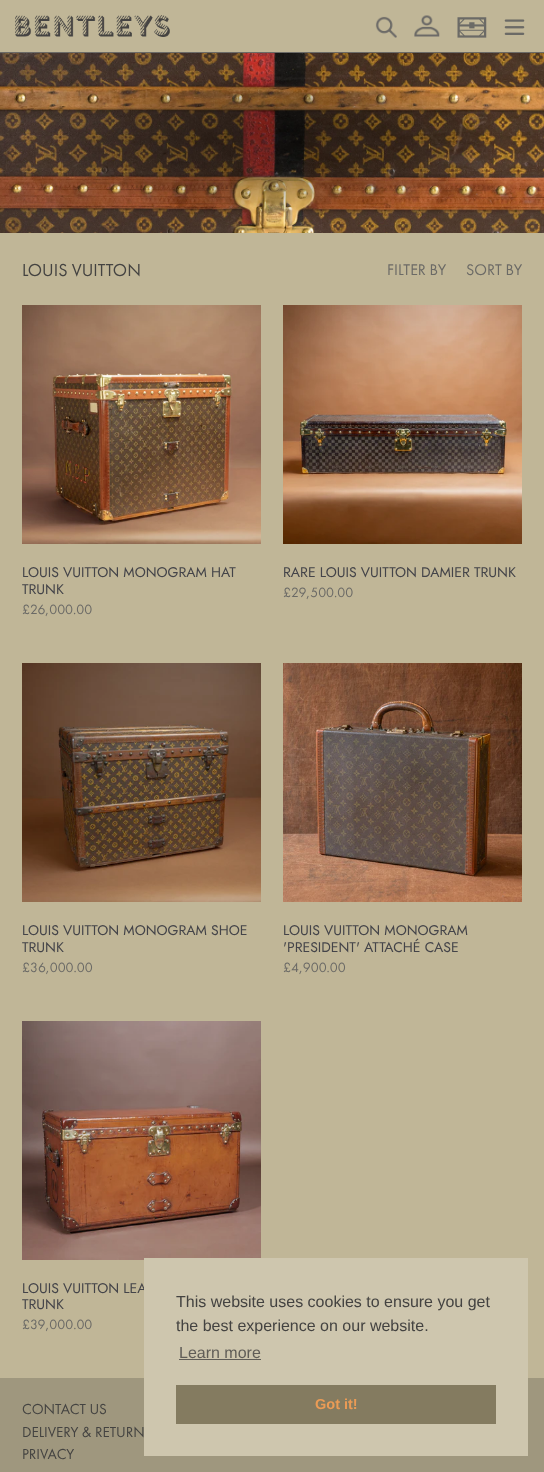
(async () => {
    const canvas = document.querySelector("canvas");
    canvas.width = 544;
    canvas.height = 1472;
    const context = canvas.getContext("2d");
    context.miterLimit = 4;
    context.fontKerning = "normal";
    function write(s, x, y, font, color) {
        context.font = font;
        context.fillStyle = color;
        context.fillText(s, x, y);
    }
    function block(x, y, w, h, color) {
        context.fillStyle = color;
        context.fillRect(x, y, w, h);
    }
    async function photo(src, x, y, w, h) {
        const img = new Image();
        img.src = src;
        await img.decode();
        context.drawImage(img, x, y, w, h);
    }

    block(0, 0, 544, 1472, "rgb(192, 182, 151)");
    block(0, 52, 544, 1, "rgb(107, 106, 102)");
    await photo("media/1.png", 15, 15, 155, 22);
    await photo("media/2.png", 375, 16, 22, 22);
    await photo("media/3.png", 414, 15, 26, 22);
    await photo("media/4.png", 457, 17, 30, 21);
    await photo("media/5.png", 504, 19, 21, 16);
    await photo("media/6.png", 0, 53, 544, 180);
    write("LOUIS VUITTON", 22, 276, "18px Futura PT", "rgb(68, 67, 65)");
    write("FILTER BY", 387, 275, "16px Futura PT", "rgb(107, 106, 102)");
    write("SORT BY", 466, 275, "16px Futura PT", "rgb(107, 106, 102)");
    await photo("media/7.png", 22, 305, 239, 239);
    write("LOUIS VUITTON MONOGRAM HAT", 22, 577, "14px Jost", "rgb(68, 68, 73)");
    write("TRUNK", 22, 594, "14px Jost", "rgb(68, 68, 73)");
    write("£26,000.00", 22, 614, "14px Futura PT", "rgb(107, 106, 102)");
    await photo("media/8.png", 283, 305, 239, 239);
    write("RARE LOUIS VUITTON DAMIER TRUNK", 283, 577, "14px Jost", "rgb(68, 68, 73)");
    write("£29,500.00", 283, 597, "14px Futura PT", "rgb(107, 106, 102)");
    await photo("media/9.png", 22, 663, 239, 239);
    write("LOUIS VUITTON MONOGRAM SHOE", 22, 935, "14px Jost", "rgb(68, 68, 73)");
    write("TRUNK", 22, 952, "14px Jost", "rgb(68, 68, 73)");
    write("£36,000.00", 22, 972, "14px Futura PT", "rgb(107, 106, 102)");
    await photo("media/10.png", 283, 663, 239, 239);
    write("LOUIS VUITTON MONOGRAM", 283, 935, "14px Jost", "rgb(68, 68, 73)");
    write("'PRESIDENT' ATTACHÉ CASE", 283, 952, "14px Jost", "rgb(68, 68, 73)");
    write("£4,900.00", 283, 972, "14px Futura PT", "rgb(107, 106, 102)");
    await photo("media/11.png", 22, 1021, 239, 239);
    write("LOUIS VUITTON LEA", 22, 1293, "14px Jost", "rgb(68, 68, 73)");
    write("TRUNK", 22, 1309, "14px Jost", "rgb(68, 68, 73)");
    write("£39,000.00", 22, 1329, "14px Futura PT", "rgb(107, 106, 102)");
    block(0, 1378, 544, 94, "rgb(159, 151, 126)");
    write("CONTACT US", 22, 1414, "15px Futura PT", "rgb(68, 67, 65)");
    write("DELIVERY & RETURN", 22, 1437, "15px Futura PT", "rgb(68, 67, 65)");
    write("PRIVACY", 22, 1459, "15px Futura PT", "rgb(68, 67, 65)");
    block(144, 1258, 384, 198, "rgb(206, 198, 174)");
    write("This website uses cookies to ensure you get", 176, 1307, "16px Liberation Sans", "rgb(68, 67, 65)");
    write("the best experience on our website.", 176, 1331, "16px Liberation Sans", "rgb(68, 67, 65)");
    write("Learn more", 179, 1358, "16px Liberation Sans", "rgb(96, 93, 87)");
    block(179, 1359, 82, 1, "rgb(96, 93, 87)");
    block(176, 1385, 320, 39, "rgb(132, 123, 96)");
    write("Got it!", 315, 1409, "bold 14.5px Liberation Sans", "rgb(235, 155, 85)");
})();
